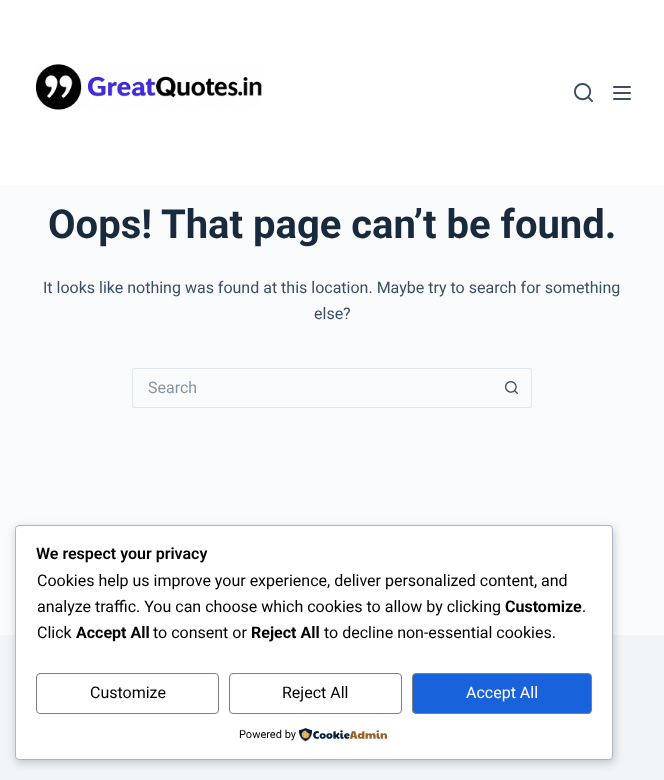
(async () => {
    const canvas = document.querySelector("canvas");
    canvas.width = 664;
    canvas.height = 780;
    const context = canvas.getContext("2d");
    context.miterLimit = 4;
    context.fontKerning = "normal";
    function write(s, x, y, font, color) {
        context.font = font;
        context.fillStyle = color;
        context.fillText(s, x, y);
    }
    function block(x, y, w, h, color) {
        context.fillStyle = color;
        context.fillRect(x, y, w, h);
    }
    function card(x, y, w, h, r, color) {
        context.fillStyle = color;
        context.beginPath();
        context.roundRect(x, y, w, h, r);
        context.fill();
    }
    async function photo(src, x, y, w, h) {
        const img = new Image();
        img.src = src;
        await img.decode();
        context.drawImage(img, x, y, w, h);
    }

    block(0, 0, 664, 780, "rgb(250, 251, 252)");
    block(0, 0, 664, 185, "rgb(255, 255, 255)");
    await photo("media/1.png", 35, 64, 227, 46);
    await photo("media/2.png", 574, 83, 19, 19);
    card(613, 86, 18, 2, 1, "rgb(58, 79, 102)");
    card(613, 92, 18, 2, 1, "rgb(58, 79, 102)");
    card(613, 98, 18, 2, 1, "rgb(58, 79, 102)");
    write("Oops! That page can’t be found.", 48, 238, "bold 40px Roboto", "rgb(25, 42, 61)");
    write("It looks like nothing was found at this location. Maybe try to search for something", 43, 293, "16px Roboto", "rgb(58, 79, 102)");
    write("else?", 314, 319, "16px Roboto", "rgb(58, 79, 102)");
    context.fillStyle = "rgb(225, 232, 237)";
    context.beginPath();
    context.moveTo(135, 368);
    context.lineTo(492, 368);
    context.lineTo(492, 408);
    context.lineTo(135, 408);
    context.bezierCurveTo(133, 408, 132, 407, 132, 405);
    context.lineTo(132, 371);
    context.bezierCurveTo(132, 369, 133, 368, 135, 368);
    context.closePath();
    context.moveTo(135, 369);
    context.lineTo(492, 369);
    context.lineTo(492, 407);
    context.lineTo(134, 407);
    context.bezierCurveTo(132, 405, 133, 400, 133, 399);
    context.lineTo(133, 371);
    context.lineTo(134, 369);
    context.closePath();
    context.fill("evenodd");
    write("Search", 148, 393, "16px Roboto", "rgb(135, 148, 162)");
    context.fillStyle = "rgb(225, 232, 237)";
    context.beginPath();
    context.moveTo(492, 368);
    context.lineTo(529, 368);
    context.bezierCurveTo(531, 368, 532, 369, 532, 371);
    context.lineTo(532, 405);
    context.bezierCurveTo(532, 407, 531, 408, 529, 408);
    context.lineTo(492, 408);
    context.closePath();
    context.moveTo(492, 369);
    context.lineTo(529, 369);
    context.bezierCurveTo(530, 369, 531, 370, 531, 371);
    context.lineTo(531, 405);
    context.bezierCurveTo(531, 406, 530, 407, 529, 407);
    context.lineTo(492, 407);
    context.closePath();
    context.fill("evenodd");
    await photo("media/3.png", 505, 381, 13, 13);
    context.beginPath();
    context.moveTo(515.5, 394.5);
    context.bezierCurveTo(512, 396.5, 507.5, 395.5, 505.5, 391.5);
    context.strokeStyle = "rgb(250, 251, 252)";
    context.lineWidth = 1.5;
    context.lineCap = "round";
    context.stroke();
    block(0, 635, 664, 145, "rgb(242, 245, 247)");
    context.fillStyle = "rgba(0, 0, 0, 0.2)";
    context.filter = "blur(5px)";
    context.beginPath();
    context.roundRect(16, 528, 598, 235, 4);
    context.fill();
    context.filter = "none";
    context.fillStyle = "rgb(255, 255, 255)";
    context.beginPath();
    context.roundRect(15.5, 525.5, 597, 234, 3.5);
    context.fill();
    context.strokeStyle = "rgb(171, 184, 195)";
    context.lineWidth = 1;
    context.stroke();
    write("We respect your privacy", 36, 559, "600 16px Roboto", "rgb(0, 0, 0)");
    write("Cookies help us improve your experience, deliver personalized content, and", 37, 586, "16px Roboto", "rgb(0, 0, 0)");
    write("analyze traffic. You can choose which cookies to allow by clicking", 37, 612, "16px Roboto", "rgb(0, 0, 0)");
    write("Customize", 505, 612, "bold 16px Roboto", "rgb(0, 0, 0)");
    write(".", 582, 612, "16px Roboto", "rgb(0, 0, 0)");
    write("Click", 37, 638, "16px Roboto", "rgb(0, 0, 0)");
    write("Accept All", 76, 638, "bold 16px Roboto", "rgb(0, 0, 0)");
    write("to consent or", 153, 638, "16px Roboto", "rgb(0, 0, 0)");
    write("Reject All", 251, 638, "bold 16px Roboto", "rgb(0, 0, 0)");
    write("to decline non-essential cookies.", 324, 638, "16px Roboto", "rgb(0, 0, 0)");
    context.beginPath();
    context.roundRect(36.5, 673.5, 182, 40, 3.5);
    context.strokeStyle = "rgb(128, 128, 128)";
    context.stroke();
    write("Customize", 90, 698, "16px Roboto", "rgb(0, 0, 0)");
    context.beginPath();
    context.roundRect(229.5, 673.5, 172, 40, 3.5);
    context.stroke();
    write("Reject All", 282, 698, "16px Roboto", "rgb(0, 0, 0)");
    context.fillStyle = "rgb(24, 99, 220)";
    context.beginPath();
    context.roundRect(412.5, 673.5, 179, 40, 3.5);
    context.fill();
    context.stroke();
    write("Accept All", 466, 698, "16px Roboto", "rgb(255, 255, 255)");
    write("Powered by", 239, 738, "11px Roboto", "rgb(0, 0, 0)");
    await photo("media/4.png", 299, 728, 88, 14);
})();
